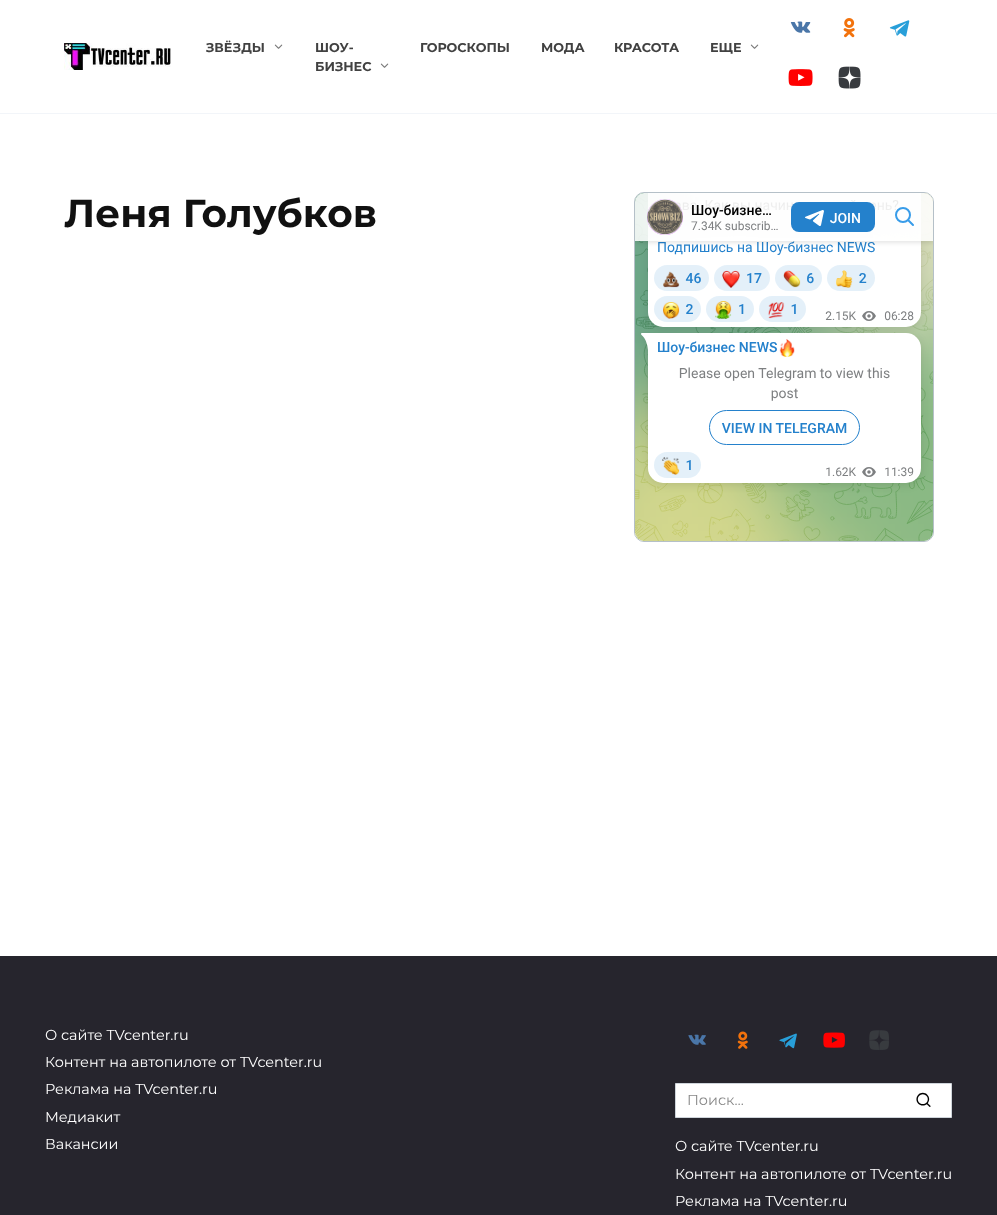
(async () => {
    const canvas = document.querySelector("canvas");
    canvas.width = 997;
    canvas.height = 1215;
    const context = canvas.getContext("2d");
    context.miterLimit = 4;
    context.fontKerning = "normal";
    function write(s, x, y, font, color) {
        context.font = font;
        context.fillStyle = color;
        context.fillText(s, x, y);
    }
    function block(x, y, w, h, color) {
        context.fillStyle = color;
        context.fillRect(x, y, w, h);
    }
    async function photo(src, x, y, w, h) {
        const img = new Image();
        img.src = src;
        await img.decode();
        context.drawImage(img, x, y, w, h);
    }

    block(0, 0, 997, 1215, "rgb(255, 255, 255)");
    block(0, 113, 997, 1, "rgb(242, 245, 249)");
    await photo("media/1.png", 64, 43, 107, 27);
    write("ЗВЁЗДЫ", 206, 52, "bold 12.75px Montserrat", "rgb(65, 65, 65)");
    write("﹀", 272, 52, "12.75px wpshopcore", "rgb(122, 122, 122)");
    write("ШОУ-", 315, 52, "bold 12.75px Montserrat", "rgb(65, 65, 65)");
    write("БИЗНЕС", 315, 71, "bold 12.75px Montserrat", "rgb(65, 65, 65)");
    write("﹀", 378, 71, "12.75px wpshopcore", "rgb(122, 122, 122)");
    write("ГОРОСКОПЫ", 420, 52, "bold 12.75px Montserrat", "rgb(65, 65, 65)");
    write("МОДА", 541, 52, "bold 12.75px Montserrat", "rgb(65, 65, 65)");
    write("КРАСОТА", 614, 52, "bold 12.75px Montserrat", "rgb(65, 65, 65)");
    write("ЕЩЕ", 710, 52, "bold 12.75px Montserrat", "rgb(65, 65, 65)");
    write("﹀", 748, 52, "12.75px wpshopcore", "rgb(122, 122, 122)");
    await photo("media/2.png", 790, 21, 21, 12);
    await photo("media/3.png", 843, 18, 12, 20);
    await photo("media/4.png", 889, 20, 21, 17);
    await photo("media/5.png", 788, 69, 25, 17);
    await photo("media/6.png", 838, 66, 23, 23);
    write("Леня Голубков", 64, 227, "bold 39px Montserrat", "rgb(17, 17, 17)");
    context.beginPath();
    context.roundRect(634.5, 192.5, 299, 349, 9.5);
    context.strokeStyle = "rgb(181, 192, 200)";
    context.stroke();
    await photo("media/7.png", 635, 193, 298, 348);
    block(0, 956, 997, 259, "rgb(38, 37, 45)");
    write("О сайте TVcenter.ru", 45, 1040, "14.4px Montserrat", "rgb(255, 255, 255)");
    write("Контент на автопилоте от TVcenter.ru", 45, 1067, "14.4px Montserrat", "rgb(255, 255, 255)");
    write("Реклама на TVcenter.ru", 45, 1094, "14.4px Montserrat", "rgb(255, 255, 255)");
    write("Медиакит", 45, 1122, "14.4px Montserrat", "rgb(255, 255, 255)");
    write("Вакансии", 45, 1149, "14.4px Montserrat", "rgb(255, 255, 255)");
    await photo("media/8.png", 688, 1034, 18, 11);
    await photo("media/9.png", 737, 1031, 11, 18);
    await photo("media/10.png", 779, 1033, 18, 16);
    await photo("media/11.png", 823, 1032, 22, 16);
    await photo("media/12.png", 869, 1030, 20, 20);
    context.beginPath();
    context.rect(675.5, 1083.5, 276, 34);
    context.fill();
    context.strokeStyle = "rgb(206, 212, 218)";
    context.stroke();
    write("Поиск…", 687, 1105, "14.4px Montserrat", "rgb(136, 136, 136)");
    write("🔍", 915, 1107, "17px wpshopcore", "rgb(0, 0, 0)");
    write("О сайте TVcenter.ru", 675, 1151, "14.4px Montserrat", "rgb(255, 255, 255)");
    write("Контент на автопилоте от TVcenter.ru", 675, 1179, "14.4px Montserrat", "rgb(255, 255, 255)");
    write("Реклама на TVcenter.ru", 675, 1206, "14.4px Montserrat", "rgb(255, 255, 255)");
})();
